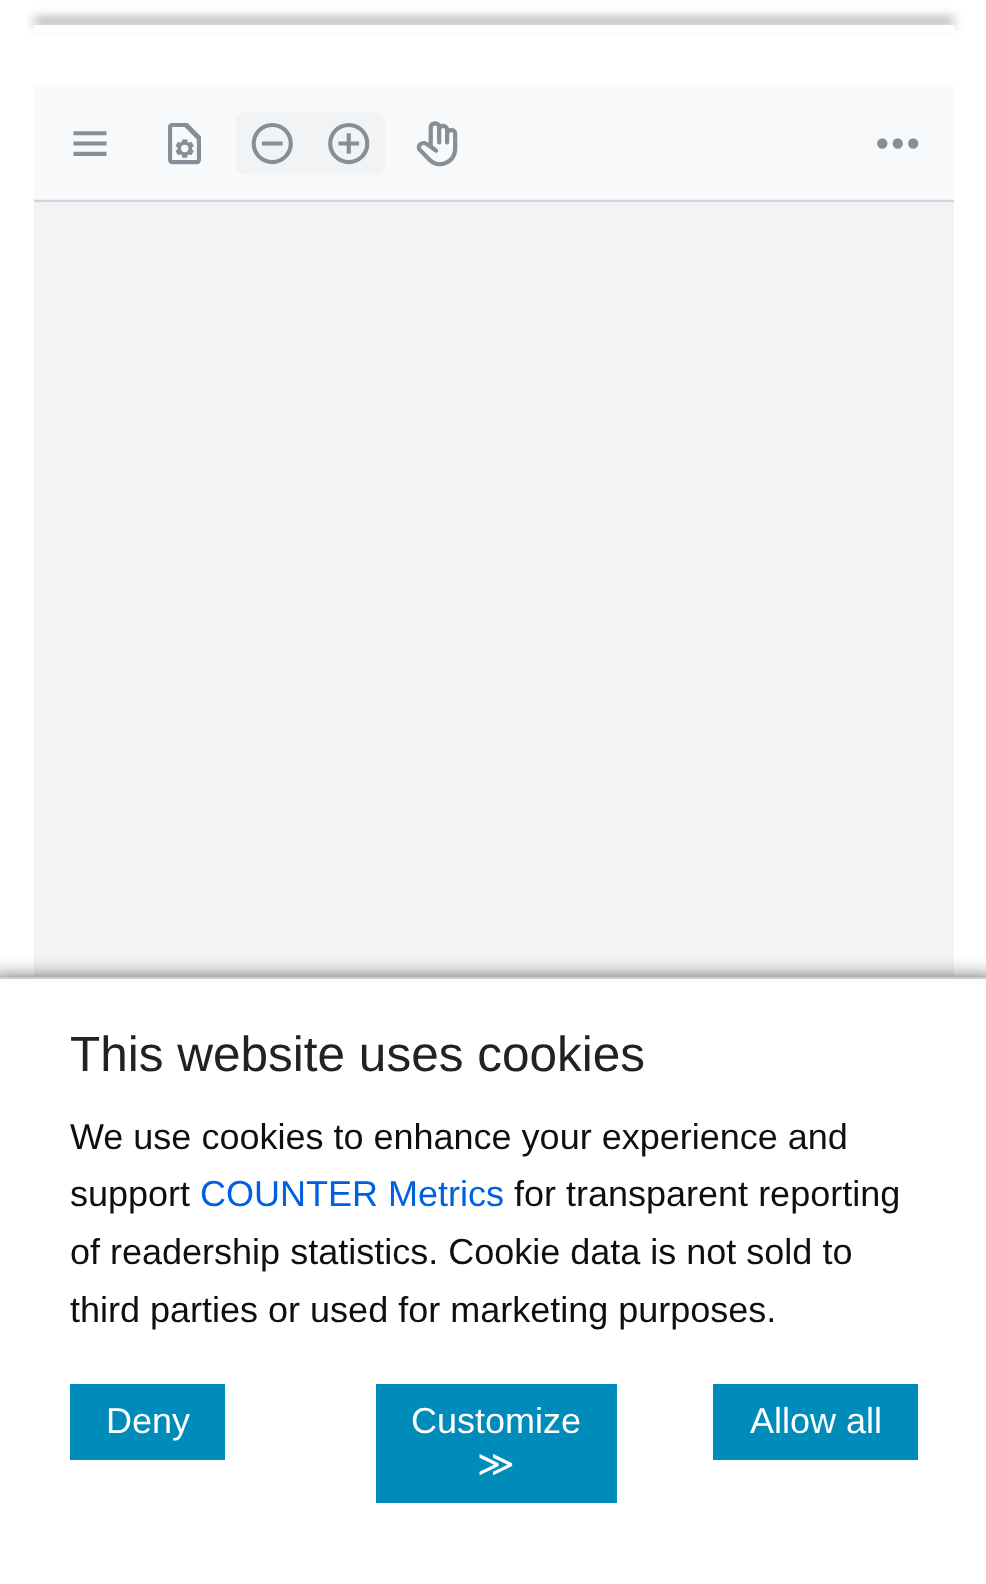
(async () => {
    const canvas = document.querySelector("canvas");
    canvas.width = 986;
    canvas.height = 1584;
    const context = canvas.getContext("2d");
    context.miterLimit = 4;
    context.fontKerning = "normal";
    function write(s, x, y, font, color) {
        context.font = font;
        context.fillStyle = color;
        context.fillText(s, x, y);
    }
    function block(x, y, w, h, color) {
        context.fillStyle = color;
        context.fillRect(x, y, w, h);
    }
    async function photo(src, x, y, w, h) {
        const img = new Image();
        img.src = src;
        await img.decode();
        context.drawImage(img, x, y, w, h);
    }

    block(0, 0, 986, 1584, "rgb(255, 255, 255)");
    context.save();
    context.beginPath();
    context.moveTo(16, 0);
    context.lineTo(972, 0);
    context.lineTo(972, 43);
    context.lineTo(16, 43);
    context.closePath();
    context.moveTo(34, 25);
    context.lineTo(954, 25);
    context.lineTo(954, 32);
    context.lineTo(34, 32);
    context.closePath();
    context.clip("evenodd");
    context.fillStyle = "rgba(0, 0, 0, 0.4)";
    context.filter = "blur(5.5px)";
    context.beginPath();
    context.rect(34, 18, 920, 7);
    context.fill();
    context.filter = "none";
    context.restore();
    await photo("media/1.png", 34, 85, 920, 892);
    context.fillStyle = "rgb(0, 0, 0)";
    context.filter = "blur(12.5px)";
    context.beginPath();
    context.rect(-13, 983, 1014, 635);
    context.fill();
    context.filter = "none";
    block(0, 979, 986, 605, "rgb(255, 255, 255)");
    block(0, 977, 986, 2, "rgb(204, 204, 204)");
    write("This website uses cookies", 70, 1071, "49.5px Liberation Sans", "rgb(34, 34, 34)");
    write("We use cookies to enhance your experience and", 70, 1149, "36px Liberation Sans", "rgb(15, 15, 15)");
    write("support", 70, 1206, "36px Liberation Sans", "rgb(15, 15, 15)");
    write("COUNTER Metrics", 200, 1206, "36px Liberation Sans", "rgb(0, 97, 224)");
    write("for transparent reporting", 514, 1206, "36px Liberation Sans", "rgb(15, 15, 15)");
    write("of readership statistics. Cookie data is not sold to", 70, 1264, "36px Liberation Sans", "rgb(15, 15, 15)");
    write("third parties or used for marketing purposes.", 70, 1322, "36px Liberation Sans", "rgb(15, 15, 15)");
    block(70, 1384, 155, 76, "rgb(0, 140, 186)");
    write("Deny", 106, 1433, "36px Liberation Sans", "rgb(255, 255, 255)");
    block(376, 1384, 241, 119, "rgb(0, 140, 186)");
    write("Customize", 411, 1433, "36px Liberation Sans", "rgb(255, 255, 255)");
    write("≫", 477, 1476, "36px DejaVu Sans", "rgb(255, 255, 255)");
    block(713, 1384, 205, 76, "rgb(0, 140, 186)");
    write("Allow all", 750, 1433, "36px Liberation Sans", "rgb(255, 255, 255)");
})();
